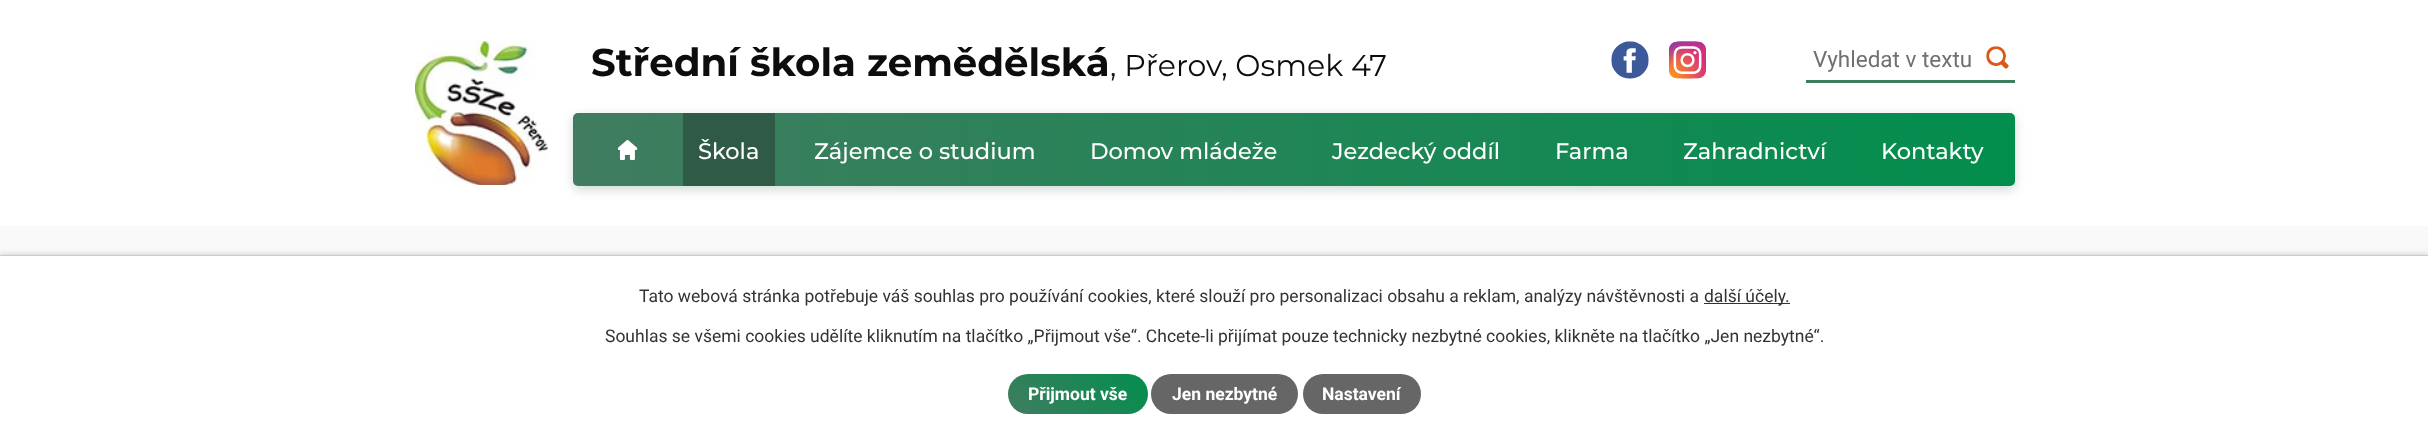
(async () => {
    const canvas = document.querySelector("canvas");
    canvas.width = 2428;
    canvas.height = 437;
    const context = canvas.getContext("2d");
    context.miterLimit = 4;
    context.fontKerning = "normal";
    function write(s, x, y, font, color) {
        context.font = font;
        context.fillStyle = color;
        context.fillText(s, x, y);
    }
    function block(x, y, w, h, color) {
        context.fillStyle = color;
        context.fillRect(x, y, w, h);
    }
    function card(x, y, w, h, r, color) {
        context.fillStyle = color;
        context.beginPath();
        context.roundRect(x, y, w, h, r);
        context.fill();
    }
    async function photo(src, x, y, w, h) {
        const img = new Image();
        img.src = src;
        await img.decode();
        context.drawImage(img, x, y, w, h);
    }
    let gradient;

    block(0, 0, 2428, 437, "rgb(255, 255, 255)");
    await photo("media/1.png", 415, 41, 133, 144);
    write("Střední škola zemědělská", 591, 76, "bold 38.75px Montserrat", "rgb(14, 13, 13)");
    write(", Přerov, Osmek 47", 1110, 76, "30px Montserrat", "rgb(14, 13, 13)");
    await photo("media/2.png", 1611, 41, 38, 38);
    await photo("media/3.png", 1669, 41, 37, 38);
    block(1806, 80, 209, 3, "rgb(64, 124, 96)");
    write("Vyhledat v textu", 1813, 67, "22.5px Roboto", "rgb(112, 112, 112)");
    await photo("media/4.png", 1986, 46, 23, 23);
    context.fillStyle = "rgba(40, 88, 70, 0.21)";
    context.filter = "blur(5.5px)";
    context.beginPath();
    context.roundRect(573, 116, 1442, 74, 5);
    context.fill();
    context.filter = "none";
    gradient = context.createLinearGradient(573, 149, 2015, 149);
    gradient.addColorStop(0, "rgb(64, 124, 96)");
    gradient.addColorStop(1, "rgb(2, 142, 77)");
    context.fillStyle = gradient;
    context.beginPath();
    context.roundRect(573, 113, 1442, 73, 5);
    context.fill();
    await photo("media/5.png", 618, 140, 20, 20);
    block(683, 113, 92, 73, "rgb(47, 90, 70)");
    write("Škola", 698, 159, "500 22.5px Montserrat", "rgb(255, 255, 255)");
    write("Zájemce o studium", 814, 159, "500 22.5px Montserrat", "rgb(255, 255, 255)");
    write("Domov mládeže", 1090, 159, "500 22.5px Montserrat", "rgb(255, 255, 255)");
    write("Jezdecký oddíl", 1332, 159, "500 22.5px Montserrat", "rgb(255, 255, 255)");
    write("Farma", 1555, 159, "500 22.5px Montserrat", "rgb(255, 255, 255)");
    write("Zahradnictví", 1683, 159, "500 22.5px Montserrat", "rgb(255, 255, 255)");
    write("Kontakty", 1881, 159, "500 22.5px Montserrat", "rgb(255, 255, 255)");
    block(0, 226, 2428, 29, "rgb(249, 249, 249)");
    context.fillStyle = "rgba(0, 0, 0, 0.2)";
    context.filter = "blur(3px)";
    context.beginPath();
    context.rect(0, 255, 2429, 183);
    context.fill();
    context.filter = "none";
    block(0, 256, 2428, 181, "rgb(255, 255, 255)");
    block(0, 255, 2428, 1, "rgb(204, 204, 204)");
    write("Tato webová stránka potřebuje váš souhlas pro používání cookies, které slouží pro personalizaci obsahu a reklam, analýzy návštěvnosti a", 639, 302, "17.5px Roboto", "rgb(51, 51, 51)");
    block(1704, 303, 86, 1, "rgb(51, 51, 51)");
    write("další účely.", 1704, 302, "17.5px Roboto", "rgb(51, 51, 51)");
    write("Souhlas se všemi cookies udělíte kliknutím na tlačítko „Přijmout vše“. Chcete-li přijímat pouze technicky nezbytné cookies, klikněte na tlačítko „Jen nezbytné“.", 605, 342, "17.5px Roboto", "rgb(51, 51, 51)");
    gradient = context.createLinearGradient(1033, 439, 1123, 349);
    gradient.addColorStop(0, "rgb(64, 124, 96)");
    gradient.addColorStop(1, "rgb(2, 142, 77)");
    context.fillStyle = gradient;
    context.beginPath();
    context.roundRect(1008, 374, 140, 40, 20);
    context.fill();
    write("Přijmout vše", 1028, 400, "bold 17.5px Roboto", "rgb(255, 255, 255)");
    card(1151, 374, 147, 40, 20, "rgb(102, 102, 102)");
    write("Jen nezbytné", 1172, 400, "bold 17.5px Roboto", "rgb(255, 255, 255)");
    card(1303, 374, 118, 40, 20, "rgb(102, 102, 102)");
    write("Nastavení", 1322, 400, "bold 17.5px Roboto", "rgb(255, 255, 255)");
})();
